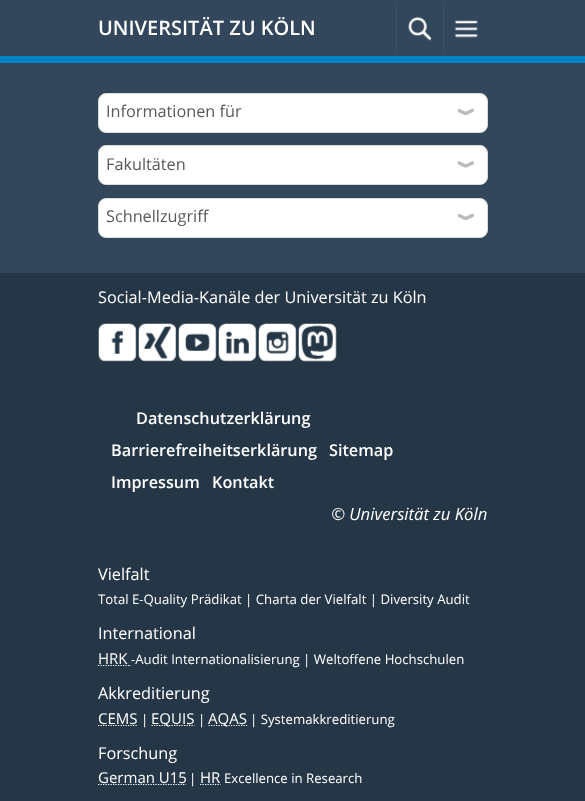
(async () => {
    const canvas = document.querySelector("canvas");
    canvas.width = 585;
    canvas.height = 801;
    const context = canvas.getContext("2d");
    context.miterLimit = 4;
    context.fontKerning = "normal";
    function write(s, x, y, font, color) {
        context.font = font;
        context.fillStyle = color;
        context.fillText(s, x, y);
    }
    function block(x, y, w, h, color) {
        context.fillStyle = color;
        context.fillRect(x, y, w, h);
    }
    async function photo(src, x, y, w, h) {
        const img = new Image();
        img.src = src;
        await img.decode();
        context.drawImage(img, x, y, w, h);
    }

    block(0, 0, 585, 801, "rgb(50, 71, 91)");
    block(0, 56, 585, 7, "rgb(0, 130, 198)");
    write("UNIVERSITÄT ZU KÖLN", 98, 35, "600 20px Open Sans", "rgb(255, 255, 255)");
    block(396, 6, 1, 44, "rgb(62, 86, 108)");
    await photo("media/1.png", 408, 17, 24, 24);
    block(443, 6, 1, 44, "rgb(62, 86, 108)");
    await photo("media/2.png", 454, 20, 24, 18);
    context.fillStyle = "rgb(255, 255, 255)";
    context.beginPath();
    context.roundRect(98.5, 93.5, 389, 39, 7.5);
    context.fill();
    context.strokeStyle = "rgb(219, 219, 219)";
    context.stroke();
    write("Informationen für", 106, 117, "16.25px Open Sans", "rgb(89, 89, 89)");
    context.fillStyle = "rgb(255, 255, 255)";
    context.beginPath();
    context.roundRect(446, 94, 40, 37, [4, 6, 6, 4]);
    context.fill();
    await photo("media/3.png", 458, 108, 16, 8);
    context.beginPath();
    context.roundRect(98.5, 145.5, 389, 39, 7.5);
    context.fill();
    context.stroke();
    write("Fakultäten", 106, 170, "16.25px Open Sans", "rgb(89, 89, 89)");
    context.fillStyle = "rgb(255, 255, 255)";
    context.beginPath();
    context.roundRect(446, 146, 40, 38, [4, 6, 6, 4]);
    context.fill();
    await photo("media/4.png", 458, 161, 16, 7);
    context.beginPath();
    context.roundRect(98.5, 198.5, 389, 39, 7.5);
    context.fill();
    context.stroke();
    write("Schnellzugriff", 106, 222, "16.25px Open Sans", "rgb(89, 89, 89)");
    context.fillStyle = "rgb(255, 255, 255)";
    context.beginPath();
    context.roundRect(446, 199, 40, 37, [4, 6, 6, 4]);
    context.fill();
    await photo("media/3.png", 458, 213, 16, 8);
    block(0, 273, 585, 528, "rgb(37, 55, 70)");
    write("Social-Media-Kanäle der Universität zu Köln", 98, 303, "16.25px Open Sans", "rgb(255, 255, 255)");
    await photo("media/5.png", 98, 323, 39, 39);
    await photo("media/6.png", 138, 323, 39, 39);
    await photo("media/7.png", 178, 323, 39, 39);
    await photo("media/8.png", 218, 323, 39, 39);
    await photo("media/9.png", 258, 323, 39, 39);
    await photo("media/10.png", 298, 323, 39, 39);
    write("Datenschutzerklärung", 136, 424, "600 16.25px Open Sans", "rgb(255, 255, 255)");
    write("Barrierefreiheitserklärung", 111, 456, "600 16.25px Open Sans", "rgb(255, 255, 255)");
    write("Sitemap", 329, 456, "600 16.25px Open Sans", "rgb(255, 255, 255)");
    write("Impressum", 111, 488, "600 16.25px Open Sans", "rgb(255, 255, 255)");
    write("Kontakt", 212, 488, "600 16.25px Open Sans", "rgb(255, 255, 255)");
    write("© Universität zu Köln", 331, 520, "italic 16.75px Open Sans", "rgb(255, 255, 255)");
    write("Vielfalt", 98, 580, "16.25px Open Sans", "rgb(255, 255, 255)");
    write("Total E-Quality Prädikat | Charta der Vielfalt | Diversity Audit", 98, 604, "13.2px Open Sans", "rgb(255, 255, 255)");
    write("International", 98, 639, "16.25px Open Sans", "rgb(255, 255, 255)");
    write("HRK", 98, 664, "15px Open Sans", "rgb(255, 255, 255)");
    write("-Audit Internationalisierung | Weltoffene Hochschulen", 131, 664, "13.2px Open Sans", "rgb(255, 255, 255)");
    context.beginPath();
    context.moveTo(98, 665.5);
    context.lineTo(131, 665.5);
    context.strokeStyle = "rgb(255, 255, 255)";
    context.lineWidth = 1.2;
    context.setLineDash([1.25, 1.25]);
    context.stroke();
    write("Akkreditierung", 98, 699, "16.25px Open Sans", "rgb(255, 255, 255)");
    context.beginPath();
    context.moveTo(98, 725.5);
    context.lineTo(137, 725.5);
    context.stroke();
    write("CEMS", 98, 724, "15px Open Sans", "rgb(255, 255, 255)");
    write("|", 141, 724, "13.2px Open Sans", "rgb(255, 255, 255)");
    context.beginPath();
    context.moveTo(151.5, 725.5);
    context.lineTo(194.5, 725.5);
    context.stroke();
    write("EQUIS", 151, 724, "15px Open Sans", "rgb(255, 255, 255)");
    write("|", 198, 724, "13.2px Open Sans", "rgb(255, 255, 255)");
    context.beginPath();
    context.moveTo(208.5, 725.5);
    context.lineTo(247, 725.5);
    context.stroke();
    write("AQAS", 208, 724, "15px Open Sans", "rgb(255, 255, 255)");
    write("| Systemakkreditierung", 250, 724, "13.2px Open Sans", "rgb(255, 255, 255)");
    write("Forschung", 98, 759, "16.25px Open Sans", "rgb(255, 255, 255)");
    context.beginPath();
    context.moveTo(98, 784.5);
    context.lineTo(186, 784.5);
    context.stroke();
    write("German U15", 98, 783, "15px Open Sans", "rgb(255, 255, 255)");
    write("|", 189, 783, "13.2px Open Sans", "rgb(255, 255, 255)");
    write("HR", 200, 783, "15px Open Sans", "rgb(255, 255, 255)");
    context.beginPath();
    context.moveTo(200, 784.5);
    context.lineTo(220.5, 784.5);
    context.stroke();
    write("Excellence in Research", 224, 783, "13.2px Open Sans", "rgb(255, 255, 255)");
})();
